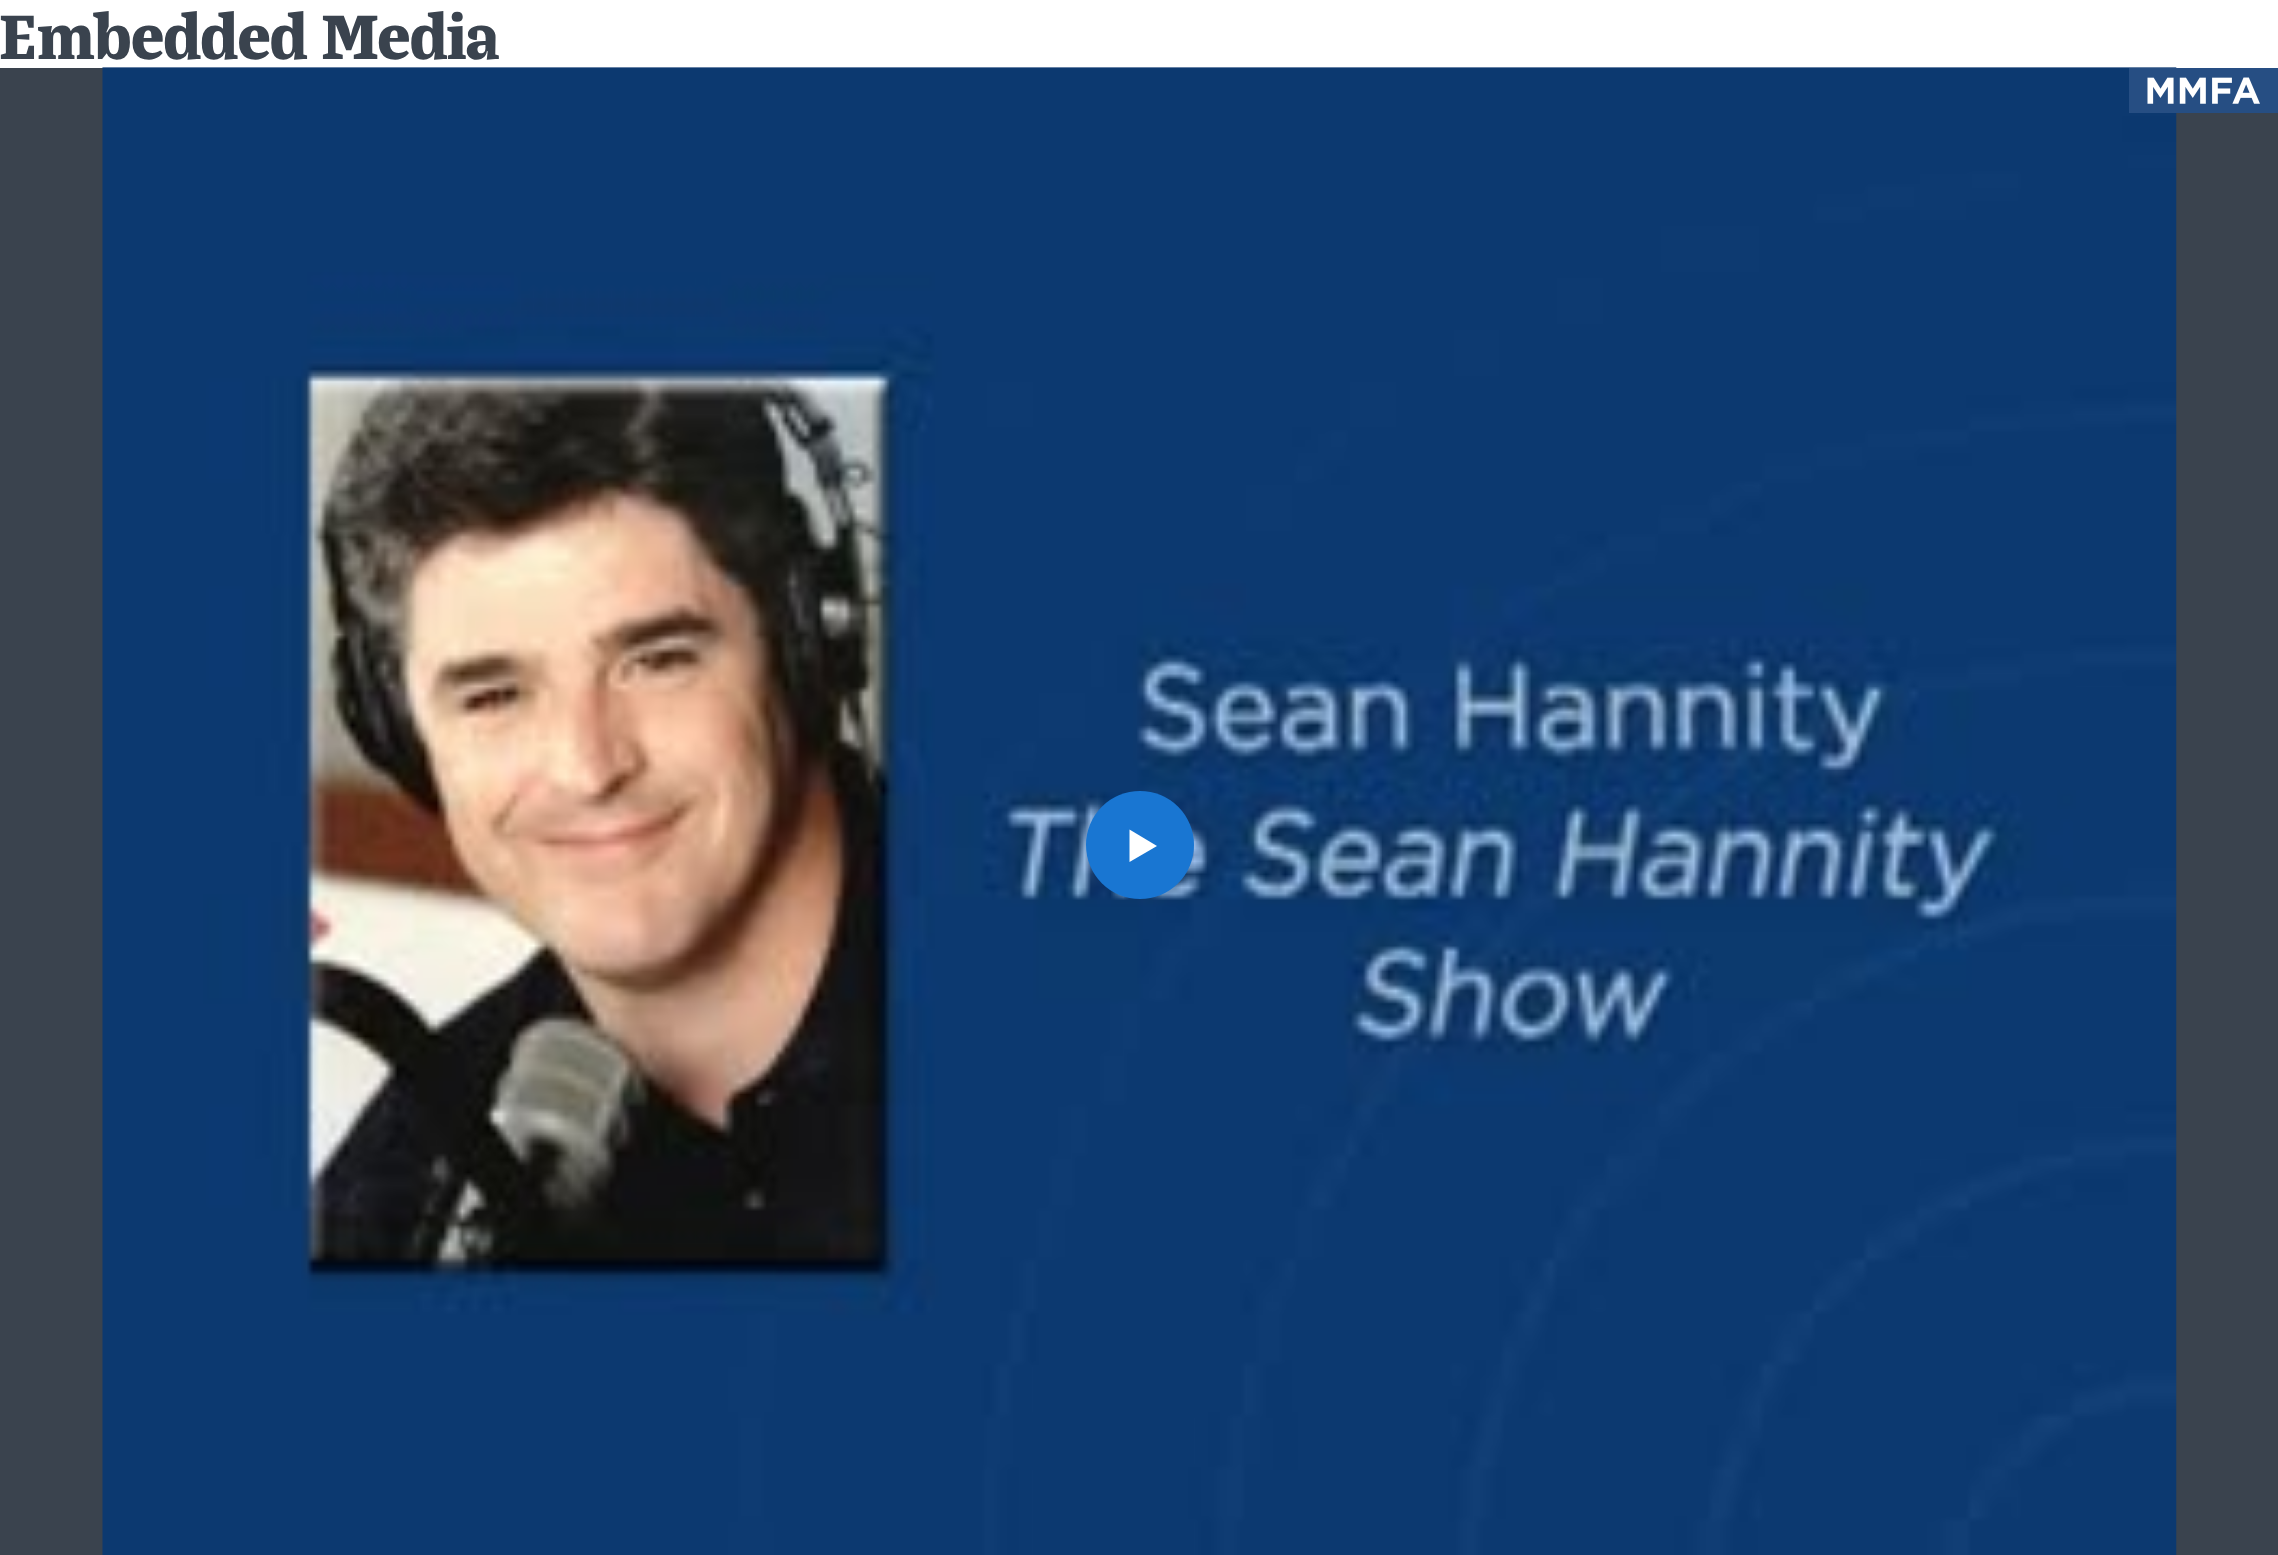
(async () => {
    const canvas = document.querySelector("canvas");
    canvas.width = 2278;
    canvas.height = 1555;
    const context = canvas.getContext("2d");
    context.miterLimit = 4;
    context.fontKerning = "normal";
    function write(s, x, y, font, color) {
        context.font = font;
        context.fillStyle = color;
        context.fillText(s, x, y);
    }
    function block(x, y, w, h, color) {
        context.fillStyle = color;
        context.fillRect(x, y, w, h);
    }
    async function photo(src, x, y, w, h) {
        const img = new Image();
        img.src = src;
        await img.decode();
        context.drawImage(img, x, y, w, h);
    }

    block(0, 0, 2278, 1555, "rgb(255, 255, 255)");
    write("Embedded Media", 0, 59, "800 67.5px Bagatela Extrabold", "rgb(58, 67, 78)");
    block(0, 68, 2278, 1487, "rgb(58, 67, 78)");
    await photo("media/3.png", 102, 67, 2075, 1);
    await photo("media/1.png", 102, 67, 2075, 1488);
    await photo("media/2.png", 2129, 68, 149, 45);
    context.fillStyle = "rgb(25, 118, 210)";
    context.beginPath();
    context.arc(1140, 845, 54, 0, Math.PI * 2);
    context.fill();
    context.fillStyle = "rgb(255, 255, 255)";
    context.beginPath();
    context.moveTo(1129.5, 829.5);
    context.lineTo(1157, 846);
    context.lineTo(1129.5, 862);
    context.closePath();
    context.fill("evenodd");
})();
